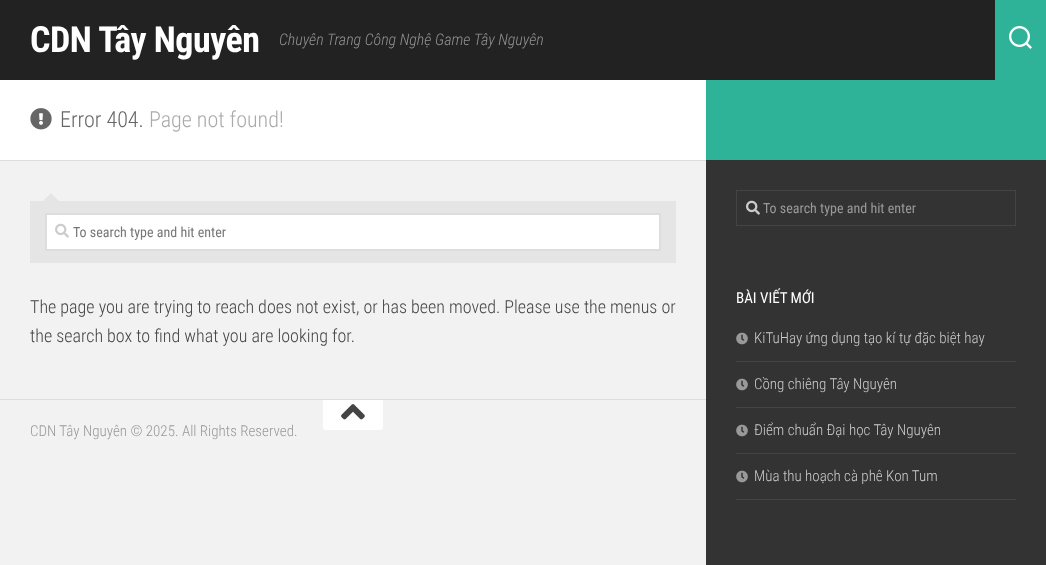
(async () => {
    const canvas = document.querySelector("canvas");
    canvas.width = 1046;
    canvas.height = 565;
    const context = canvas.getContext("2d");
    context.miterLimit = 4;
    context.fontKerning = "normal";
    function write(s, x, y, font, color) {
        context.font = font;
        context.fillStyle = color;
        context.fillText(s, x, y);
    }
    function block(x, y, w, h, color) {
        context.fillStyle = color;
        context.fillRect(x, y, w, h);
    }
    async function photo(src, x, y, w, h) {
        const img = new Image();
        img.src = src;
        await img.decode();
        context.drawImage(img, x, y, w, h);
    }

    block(0, 0, 1046, 565, "rgb(242, 242, 242)");
    block(0, 0, 995, 80, "rgb(34, 34, 34)");
    context.letterSpacing = "-0.5px";
    write("CDN Tây Nguyên", 30, 52, "bold 36px Roboto Condensed", "rgb(255, 255, 255)");
    context.letterSpacing = "0px";
    write("Chuyên Trang Công Nghệ Game Tây Nguyên", 279, 45, "italic 300 16px Roboto Condensed", "rgb(145, 145, 145)");
    block(995, 0, 51, 80, "rgb(46, 179, 152)");
    await photo("media/1.png", 1009, 26, 23, 23);
    block(706, 160, 340, 405, "rgb(51, 51, 51)");
    block(0, 80, 706, 80, "rgb(255, 255, 255)");
    block(0, 160, 706, 1, "rgb(221, 221, 221)");
    await photo("media/2.png", 30, 108, 22, 22);
    write("Error 404.", 60, 127, "300 22px Roboto Condensed", "rgb(102, 102, 102)");
    write("Page not found!", 149, 127, "300 22px Roboto Condensed", "rgb(170, 170, 170)");
    block(30, 201, 646, 62, "rgb(229, 229, 229)");
    context.beginPath();
    context.moveTo(59, 201);
    context.lineTo(43, 201);
    context.lineTo(51, 193);
    context.closePath();
    context.fill();
    context.fillStyle = "rgb(255, 255, 255)";
    context.beginPath();
    context.rect(46, 214, 614, 36);
    context.fill();
    context.strokeStyle = "rgb(221, 221, 221)";
    context.lineWidth = 2;
    context.stroke();
    await photo("media/3.png", 55, 223, 14, 15);
    write("To search type and hit enter", 73, 237, "14px Roboto Condensed", "rgb(119, 119, 119)");
    write("The page you are trying to reach does not exist, or has been moved. Please use the menus or", 30, 313, "300 18px Roboto Condensed", "rgb(68, 68, 68)");
    write("the search box to find what you are looking for.", 30, 342, "300 18px Roboto Condensed", "rgb(68, 68, 68)");
    block(0, 399, 706, 1, "rgb(221, 221, 221)");
    context.fillStyle = "rgb(255, 255, 255)";
    context.beginPath();
    context.roundRect(323, 400, 60, 30, [0, 0, 3, 3]);
    context.fill();
    await photo("media/4.png", 341, 404, 24, 16);
    write("CDN Tây Nguyên © 2025. All Rights Reserved.", 30, 436, "300 15px Roboto Condensed", "rgb(153, 153, 153)");
    block(706, 80, 340, 80, "rgb(46, 179, 152)");
    context.strokeStyle = "rgb(68, 68, 68)";
    context.lineWidth = 1;
    context.strokeRect(736.5, 190.5, 279, 35);
    await photo("media/5.png", 746, 200, 14, 15);
    write("To search type and hit enter", 763, 213, "14px Roboto Condensed", "rgb(153, 153, 153)");
    write("BÀI VIẾT MỚI", 736, 303, "15px Roboto Condensed", "rgb(255, 255, 255)");
    block(736, 361, 280, 1, "rgb(68, 68, 68)");
    await photo("media/6.png", 736, 332, 12, 13);
    write("KiTuHay ứng dụng tạo kí tự đặc biệt hay", 754, 343, "300 15px Roboto Condensed", "rgb(204, 204, 204)");
    block(736, 407, 280, 1, "rgb(68, 68, 68)");
    await photo("media/6.png", 736, 378, 12, 13);
    write("Cồng chiêng Tây Nguyên", 754, 389, "300 15px Roboto Condensed", "rgb(204, 204, 204)");
    block(736, 453, 280, 1, "rgb(68, 68, 68)");
    await photo("media/6.png", 736, 424, 12, 13);
    write("Điểm chuẩn Đại học Tây Nguyên", 754, 435, "300 15px Roboto Condensed", "rgb(204, 204, 204)");
    block(736, 499, 280, 1, "rgb(68, 68, 68)");
    await photo("media/6.png", 736, 470, 12, 13);
    write("Mùa thu hoạch cà phê Kon Tum", 754, 481, "300 15px Roboto Condensed", "rgb(204, 204, 204)");
})();
